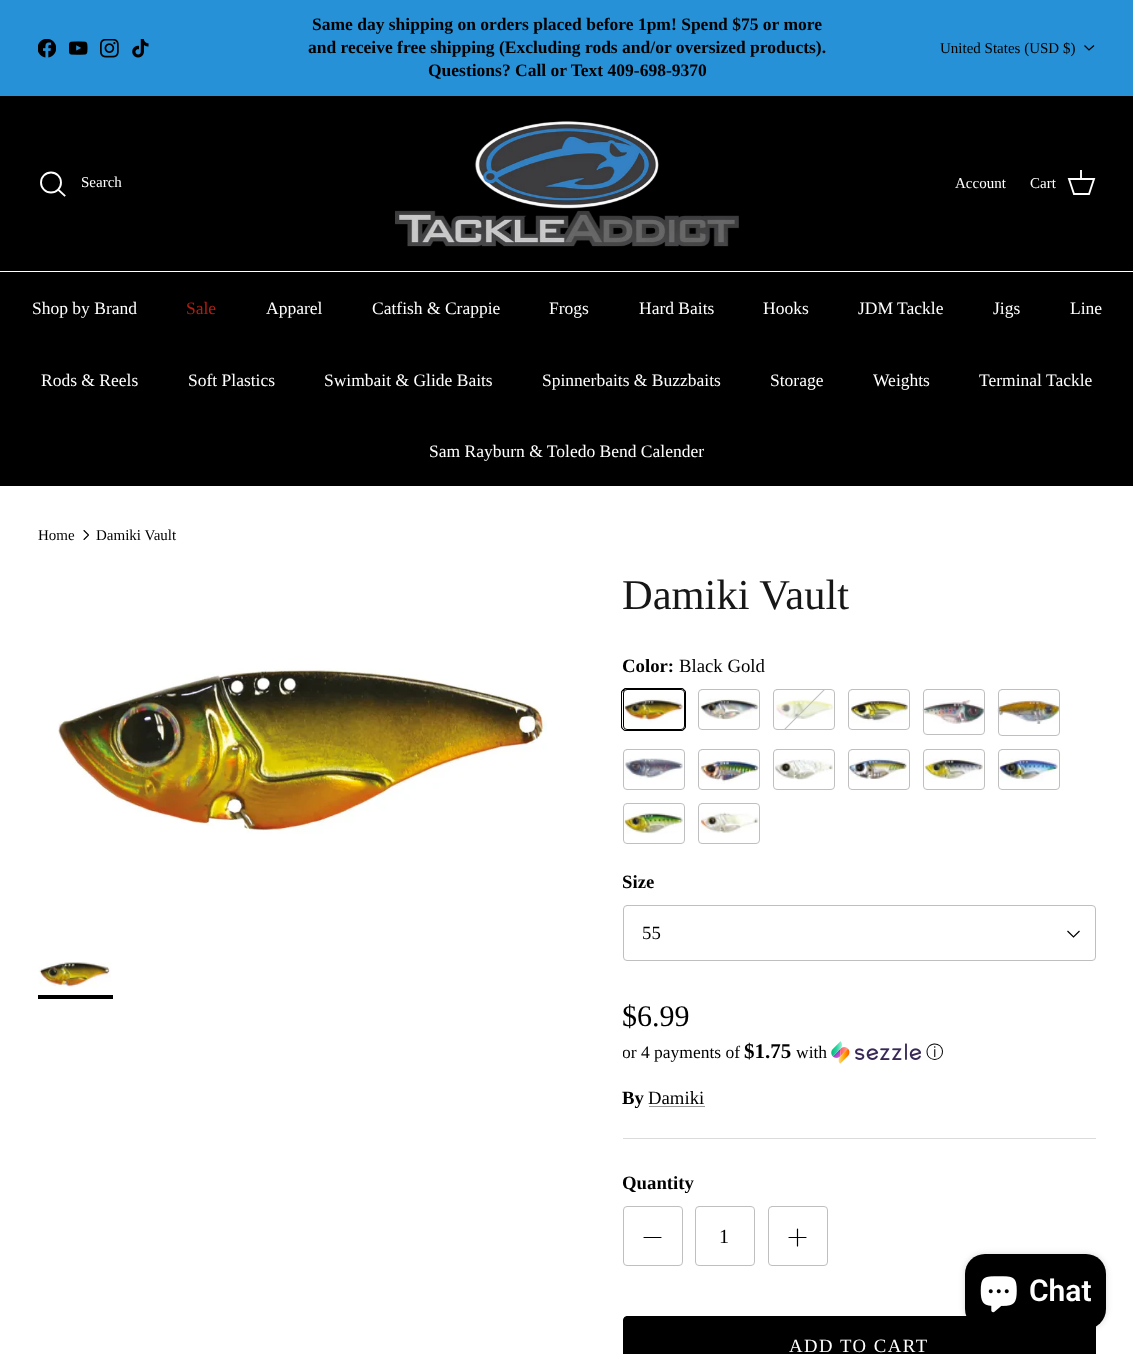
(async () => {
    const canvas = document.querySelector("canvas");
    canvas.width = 1133;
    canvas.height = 1354;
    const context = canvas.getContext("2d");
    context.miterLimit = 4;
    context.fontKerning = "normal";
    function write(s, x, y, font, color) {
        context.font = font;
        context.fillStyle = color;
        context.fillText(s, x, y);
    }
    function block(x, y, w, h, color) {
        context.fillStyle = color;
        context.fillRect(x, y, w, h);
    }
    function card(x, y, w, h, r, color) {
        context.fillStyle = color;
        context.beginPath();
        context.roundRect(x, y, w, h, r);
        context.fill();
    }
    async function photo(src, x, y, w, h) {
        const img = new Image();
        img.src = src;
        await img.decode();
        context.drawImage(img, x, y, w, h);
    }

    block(0, 0, 1133, 1354, "rgb(255, 255, 255)");
    block(0, 0, 1133, 96, "rgb(39, 145, 215)");
    await photo("media/1.png", 38, 39, 18, 19);
    await photo("media/2.png", 69, 41, 19, 14);
    await photo("media/3.png", 100, 39, 19, 19);
    await photo("media/4.png", 132, 39, 17, 19);
    write("Same day shipping on orders placed before 1pm! Spend $75 or more", 312, 30, "bold 17.5px Liberation Serif", "rgb(0, 0, 0)");
    write("and receive free shipping (Excluding rods and/or oversized products).", 308, 53, "bold 17.5px Liberation Serif", "rgb(0, 0, 0)");
    write("Questions? Call or Text 409-698-9370", 428, 76, "bold 17.5px Liberation Serif", "rgb(0, 0, 0)");
    write("United States (USD $)", 940, 53, "15px Liberation Serif", "rgb(0, 0, 0)");
    context.beginPath();
    context.moveTo(1094, 45.5);
    context.lineTo(1089, 50);
    context.lineTo(1084.5, 45.5);
    context.strokeStyle = "rgb(0, 0, 0)";
    context.lineWidth = 1.2;
    context.stroke();
    block(0, 96, 1133, 390, "rgb(0, 0, 0)");
    block(0, 271, 1133, 1, "rgb(255, 255, 255)");
    context.beginPath();
    context.arc(51, 182.5, 10, 0, Math.PI * 2);
    context.strokeStyle = "rgb(255, 255, 255)";
    context.lineWidth = 1.9;
    context.stroke();
    write("Search", 81, 187, "15px Liberation Serif", "rgb(255, 255, 255)");
    context.beginPath();
    context.moveTo(58.5, 190);
    context.lineTo(64.5, 195.5);
    context.lineCap = "square";
    context.stroke();
    await photo("media/5.png", 395, 121, 344, 126);
    write("Account", 955, 188, "15px Liberation Serif", "rgb(255, 255, 255)");
    write("Cart", 1030, 188, "15px Liberation Serif", "rgb(255, 255, 255)");
    context.beginPath();
    context.moveTo(1069, 179);
    context.lineTo(1094, 179);
    context.lineTo(1089, 194);
    context.lineTo(1074, 194);
    context.closePath();
    context.lineCap = "butt";
    context.stroke();
    block(1080, 170, 2, 10, "rgba(255, 255, 255, 0.95)");
    write("Shop by Brand", 32, 314, "17.5px Liberation Serif", "rgb(255, 255, 255)");
    write("Sale", 186, 314, "17.5px Liberation Serif", "rgb(182, 29, 15)");
    write("Apparel", 266, 314, "17.5px Liberation Serif", "rgb(255, 255, 255)");
    write("Catfish & Crappie", 372, 314, "17.5px Liberation Serif", "rgb(255, 255, 255)");
    write("Frogs", 549, 314, "17.5px Liberation Serif", "rgb(255, 255, 255)");
    write("Hard Baits", 639, 314, "17.5px Liberation Serif", "rgb(255, 255, 255)");
    write("Hooks", 763, 314, "17.5px Liberation Serif", "rgb(255, 255, 255)");
    write("JDM Tackle", 858, 314, "17.5px Liberation Serif", "rgb(255, 255, 255)");
    write("Jigs", 993, 314, "17.5px Liberation Serif", "rgb(255, 255, 255)");
    write("Line", 1070, 314, "17.5px Liberation Serif", "rgb(255, 255, 255)");
    write("Rods & Reels", 41, 386, "17.5px Liberation Serif", "rgb(255, 255, 255)");
    write("Soft Plastics", 188, 386, "17.5px Liberation Serif", "rgb(255, 255, 255)");
    write("Swimbait & Glide Baits", 324, 386, "17.5px Liberation Serif", "rgb(255, 255, 255)");
    write("Spinnerbaits & Buzzbaits", 542, 386, "17.5px Liberation Serif", "rgb(255, 255, 255)");
    write("Storage", 770, 386, "17.5px Liberation Serif", "rgb(255, 255, 255)");
    write("Weights", 873, 386, "17.5px Liberation Serif", "rgb(255, 255, 255)");
    write("Terminal Tackle", 979, 386, "17.5px Liberation Serif", "rgb(255, 255, 255)");
    write("Sam Rayburn & Toledo Bend Calender", 429, 457, "17.5px Liberation Serif", "rgb(255, 255, 255)");
    write("Home", 38, 540, "15px Liberation Serif", "rgb(0, 0, 0)");
    context.beginPath();
    context.moveTo(84, 539.5);
    context.lineTo(88.5, 535);
    context.lineTo(84, 530.5);
    context.strokeStyle = "rgb(0, 0, 0)";
    context.lineWidth = 1.1;
    context.lineCap = "round";
    context.lineJoin = "round";
    context.stroke();
    write("Damiki Vault", 96, 540, "15px Liberation Serif", "rgb(0, 0, 0)");
    await photo("media/6.png", 58, 668, 489, 166);
    await photo("media/7.png", 38, 962, 73, 25);
    block(38, 995, 75, 4, "rgb(0, 0, 0)");
    write("Damiki Vault", 622, 609, "42.5px Liberation Serif", "rgb(23, 23, 23)");
    write("Color:", 622, 672, "bold 18.75px Liberation Serif", "rgb(0, 0, 0)");
    write("Black Gold", 679, 672, "18.75px Liberation Serif", "rgb(0, 0, 0)");
    context.beginPath();
    context.roundRect(621.5, 688.5, 64, 42, 4.5);
    context.lineWidth = 1;
    context.lineJoin = "miter";
    context.stroke();
    await photo("media/9.png", 622, 688, 63, 42);
    context.beginPath();
    context.roundRect(621.5, 688.5, 64, 42, 4.5);
    context.stroke();
    await photo("media/8.png", 622, 689, 4, 4);
    context.beginPath();
    context.roundRect(623.5, 689.5, 61, 40, 3.5);
    context.stroke();
    await photo("media/10.png", 699, 698, 60, 22);
    context.beginPath();
    context.roundRect(698.5, 689.5, 61, 40, 3.5);
    context.strokeStyle = "rgb(191, 191, 191)";
    context.stroke();
    await photo("media/11.png", 774, 698, 60, 22);
    context.save();
    context.beginPath();
    context.roundRect(773, 689, 62, 41, 4);
    context.clip();
    context.beginPath();
    context.moveTo(954, 560);
    context.lineTo(654, 860);
    context.lineWidth = 1.1;
    context.lineCap = "butt";
    context.stroke();
    context.restore();
    context.beginPath();
    context.roundRect(773.5, 689.5, 61, 40, 3.5);
    context.stroke();
    await photo("media/12.png", 849, 699, 60, 24);
    context.beginPath();
    context.roundRect(848.5, 689.5, 61, 40, 3.5);
    context.stroke();
    await photo("media/13.png", 922, 699, 62, 25);
    context.beginPath();
    context.roundRect(923.5, 689.5, 61, 45, 3.5);
    context.stroke();
    await photo("media/14.png", 997, 699, 62, 25);
    context.beginPath();
    context.roundRect(998.5, 689.5, 61, 46, 3.5);
    context.stroke();
    await photo("media/15.png", 624, 758, 59, 21);
    context.beginPath();
    context.roundRect(623.5, 749.5, 61, 40, 3.5);
    context.stroke();
    await photo("media/16.png", 699, 759, 60, 25);
    context.beginPath();
    context.roundRect(698.5, 749.5, 61, 40, 3.5);
    context.stroke();
    await photo("media/17.png", 774, 759, 59, 21);
    context.beginPath();
    context.roundRect(773.5, 749.5, 61, 40, 3.5);
    context.stroke();
    await photo("media/18.png", 849, 758, 58, 22);
    context.beginPath();
    context.roundRect(848.5, 749.5, 61, 40, 3.5);
    context.stroke();
    await photo("media/19.png", 924, 758, 59, 22);
    context.beginPath();
    context.roundRect(923.5, 749.5, 61, 40, 3.5);
    context.stroke();
    await photo("media/20.png", 999, 758, 59, 24);
    context.beginPath();
    context.roundRect(998.5, 749.5, 61, 40, 3.5);
    context.stroke();
    await photo("media/21.png", 624, 813, 59, 21);
    context.beginPath();
    context.roundRect(623.5, 803.5, 61, 40, 3.5);
    context.stroke();
    await photo("media/22.png", 699, 812, 60, 21);
    context.beginPath();
    context.roundRect(698.5, 803.5, 61, 40, 3.5);
    context.stroke();
    write("Size", 622, 888, "bold 18.75px Liberation Serif", "rgb(0, 0, 0)");
    context.beginPath();
    context.roundRect(623.5, 905.5, 472, 55, 3.5);
    context.stroke();
    write("55", 642, 939, "18.75px Liberation Serif", "rgb(0, 0, 0)");
    context.beginPath();
    context.moveTo(1079.5, 931);
    context.lineTo(1073.5, 937);
    context.lineTo(1067.5, 931);
    context.strokeStyle = "rgb(0, 0, 0)";
    context.lineWidth = 1.2;
    context.lineCap = "butt";
    context.stroke();
    write("$6.99", 622, 1026, "30px Liberation Serif", "rgb(0, 0, 0)");
    context.save();
    context.beginPath();
    context.rect(623, 1040, 321, 24);
    context.clip();
    write("or 4 payments of", 622, 1058, "17.5px Liberation Serif", "rgb(0, 0, 0)");
    context.restore();
    write("$1.75", 744, 1058, "bold 21px Liberation Serif", "rgb(0, 0, 0)");
    write("with", 796, 1058, "17.5px Liberation Serif", "rgb(0, 0, 0)");
    await photo("media/23.png", 831, 1041, 90, 23);
    write("ⓘ", 926, 1058, "500 17.5px WenQuanYi Zen Hei", "rgb(0, 0, 0)");
    write("By", 622, 1104, "bold 18.75px Liberation Serif", "rgb(0, 0, 0)");
    write("Damiki", 648, 1104, "18.75px Liberation Serif", "rgb(0, 0, 0)");
    block(649, 1106, 56, 1, "rgb(153, 153, 153)");
    block(623, 1138, 473, 1, "rgb(219, 219, 219)");
    write("Quantity", 622, 1189, "bold 18.75px Liberation Serif", "rgb(0, 0, 0)");
    context.beginPath();
    context.roundRect(623.5, 1206.5, 59, 59, 3.5);
    context.strokeStyle = "rgb(191, 191, 191)";
    context.lineWidth = 1;
    context.stroke();
    context.beginPath();
    context.moveTo(644, 1237.5);
    context.lineTo(661, 1237.5);
    context.strokeStyle = "rgb(0, 0, 0)";
    context.lineWidth = 1.2;
    context.lineCap = "round";
    context.lineJoin = "round";
    context.stroke();
    context.beginPath();
    context.roundRect(695.5, 1206.5, 59, 59, 3.5);
    context.strokeStyle = "rgb(191, 191, 191)";
    context.lineWidth = 1;
    context.lineJoin = "miter";
    context.stroke();
    write("1", 719, 1243, "20px Liberation Serif", "rgb(0, 0, 0)");
    context.beginPath();
    context.roundRect(768.5, 1206.5, 59, 59, 3.5);
    context.stroke();
    context.beginPath();
    context.moveTo(797.5, 1229);
    context.lineTo(797.5, 1246);
    context.moveTo(789, 1237.5);
    context.lineTo(806, 1237.5);
    context.strokeStyle = "rgb(0, 0, 0)";
    context.lineWidth = 1.2;
    context.lineJoin = "round";
    context.stroke();
    context.beginPath();
    context.roundRect(623.5, 1316.5, 472, 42, 3.5);
    context.fill();
    context.lineWidth = 1;
    context.lineJoin = "miter";
    context.stroke();
    context.letterSpacing = "1.5px";
    write("ADD TO CART", 789, 1352, "18.75px Liberation Serif", "rgb(255, 255, 255)");
    context.fillStyle = "rgba(0, 0, 0, 0.15)";
    context.filter = "blur(3px)";
    context.beginPath();
    context.roundRect(965, 1254, 141, 75, 20);
    context.fill();
    context.filter = "none";
    card(965, 1254, 141, 75, 20, "rgb(0, 0, 0)");
    await photo("media/24.png", 980, 1276, 37, 37);
    context.letterSpacing = "0px";
    write("Chat", 1029, 1301, "600 30px Roboto", "rgb(255, 255, 255)");
})();
